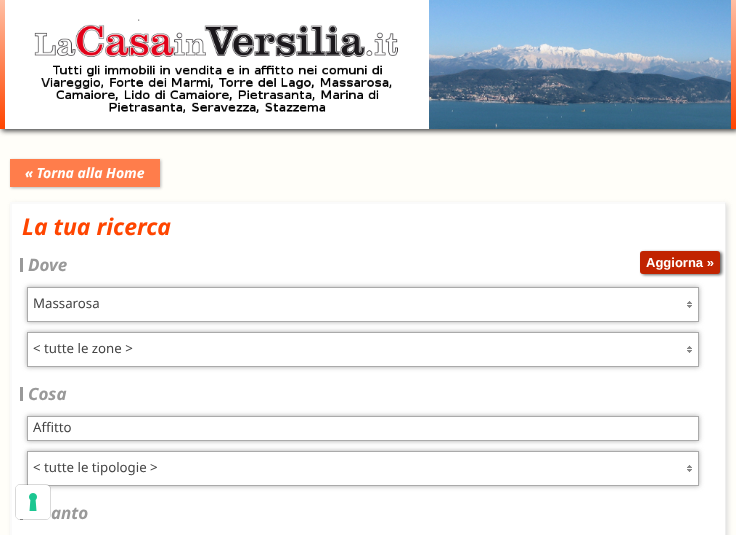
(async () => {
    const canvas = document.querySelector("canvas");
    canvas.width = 736;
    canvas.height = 535;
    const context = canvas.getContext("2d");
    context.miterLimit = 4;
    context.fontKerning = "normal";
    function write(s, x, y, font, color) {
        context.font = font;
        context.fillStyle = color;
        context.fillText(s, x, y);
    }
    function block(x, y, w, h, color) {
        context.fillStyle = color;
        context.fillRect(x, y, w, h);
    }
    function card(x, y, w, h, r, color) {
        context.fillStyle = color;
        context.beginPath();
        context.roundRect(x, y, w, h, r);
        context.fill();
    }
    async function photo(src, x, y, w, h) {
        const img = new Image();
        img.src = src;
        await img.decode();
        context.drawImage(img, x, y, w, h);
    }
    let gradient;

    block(0, 0, 736, 535, "rgb(255, 254, 249)");
    context.fillStyle = "rgb(68, 68, 68)";
    context.filter = "blur(2.5px)";
    context.beginPath();
    context.rect(2, 2, 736, 129);
    context.fill();
    context.filter = "none";
    gradient = context.createLinearGradient(368, 0, 368, 129);
    gradient.addColorStop(0, "rgb(255, 191, 164)");
    gradient.addColorStop(1, "rgb(255, 69, 0)");
    context.fillStyle = gradient;
    context.fillRect(0, 0, 736, 129);
    block(5, 0, 424, 129, "rgb(255, 255, 255)");
    await photo("media/1.png", 34, 0, 697, 129);
    context.fillStyle = "rgb(184, 183, 182)";
    context.filter = "blur(1.5px)";
    context.beginPath();
    context.rect(11, 160, 150, 28);
    context.fill();
    context.filter = "none";
    block(10, 159, 150, 28, "rgb(255, 125, 75)");
    write("« Torna alla Home", 25, 178, "italic bold 14px Noto Sans", "rgb(255, 255, 253)");
    context.fillStyle = "rgb(221, 221, 221)";
    context.filter = "blur(2.5px)";
    context.beginPath();
    context.rect(12, 204, 716, 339);
    context.fill();
    context.filter = "none";
    block(12, 204, 713, 331, "rgb(255, 255, 255)");
    context.fillStyle = "rgb(250, 250, 250)";
    context.beginPath();
    context.moveTo(10, 202);
    context.lineTo(726, 202);
    context.lineTo(725, 204);
    context.lineTo(12, 204);
    context.closePath();
    context.fill();
    context.fillStyle = "rgb(238, 238, 238)";
    context.beginPath();
    context.moveTo(726, 202);
    context.lineTo(726, 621);
    context.lineTo(725, 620);
    context.lineTo(725, 204);
    context.closePath();
    context.fill();
    context.fillStyle = "rgb(250, 250, 250)";
    context.beginPath();
    context.moveTo(10, 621);
    context.lineTo(10, 202);
    context.lineTo(12, 204);
    context.lineTo(12, 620);
    context.closePath();
    context.fill();
    write("La tua ricerca", 22, 235, "italic bold 23px Noto Sans", "rgb(255, 69, 0)");
    block(20, 258, 3, 14, "rgb(153, 153, 153)");
    write("Dove", 28, 271, "italic bold 17px Noto Sans", "rgb(153, 153, 153)");
    context.fillStyle = "rgb(102, 102, 102)";
    context.filter = "blur(1.5px)";
    context.beginPath();
    context.roundRect(642, 252, 80, 23, 3);
    context.fill();
    context.filter = "none";
    card(640, 251, 80, 23, 3, "rgb(193, 36, 0)");
    write("Aggiorna »", 646, 267, "bold 13px Liberation Sans", "rgb(255, 255, 253)");
    context.save();
    context.beginPath();
    context.moveTo(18, 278);
    context.lineTo(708, 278);
    context.lineTo(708, 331);
    context.lineTo(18, 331);
    context.closePath();
    context.moveTo(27, 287);
    context.lineTo(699, 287);
    context.lineTo(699, 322);
    context.lineTo(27, 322);
    context.closePath();
    context.clip("evenodd");
    context.fillStyle = "rgb(170, 170, 170)";
    context.filter = "blur(2.5px)";
    context.beginPath();
    context.rect(27, 287, 672, 35);
    context.fill();
    context.filter = "none";
    context.restore();
    context.strokeStyle = "rgb(170, 170, 170)";
    context.strokeRect(27.5, 287.5, 671, 34);
    write("Massarosa", 33, 308, "13.25px Noto Sans", "rgb(68, 68, 68)");
    await photo("media/2.png", 687, 301, 5, 7);
    context.save();
    context.beginPath();
    context.moveTo(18, 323);
    context.lineTo(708, 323);
    context.lineTo(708, 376);
    context.lineTo(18, 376);
    context.closePath();
    context.moveTo(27, 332);
    context.lineTo(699, 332);
    context.lineTo(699, 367);
    context.lineTo(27, 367);
    context.closePath();
    context.clip("evenodd");
    context.fillStyle = "rgb(170, 170, 170)";
    context.filter = "blur(2.5px)";
    context.beginPath();
    context.rect(27, 332, 672, 35);
    context.fill();
    context.filter = "none";
    context.restore();
    context.strokeRect(27.5, 332.5, 671, 34);
    write("< tutte le zone >", 33, 353, "13.25px Noto Sans", "rgb(68, 68, 68)");
    await photo("media/2.png", 687, 346, 5, 7);
    block(20, 387, 3, 14, "rgb(153, 153, 153)");
    write("Cosa", 28, 400, "italic bold 17px Noto Sans", "rgb(153, 153, 153)");
    context.save();
    context.beginPath();
    context.moveTo(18, 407);
    context.lineTo(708, 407);
    context.lineTo(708, 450);
    context.lineTo(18, 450);
    context.closePath();
    context.moveTo(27, 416);
    context.lineTo(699, 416);
    context.lineTo(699, 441);
    context.lineTo(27, 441);
    context.closePath();
    context.clip("evenodd");
    context.fillStyle = "rgb(170, 170, 170)";
    context.filter = "blur(2.5px)";
    context.beginPath();
    context.rect(27, 416, 672, 25);
    context.fill();
    context.filter = "none";
    context.restore();
    context.strokeRect(27.5, 416.5, 671, 24);
    write("Affitto", 33, 432, "13.25px Noto Sans", "rgb(68, 68, 68)");
    context.save();
    context.beginPath();
    context.moveTo(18, 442);
    context.lineTo(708, 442);
    context.lineTo(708, 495);
    context.lineTo(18, 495);
    context.closePath();
    context.moveTo(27, 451);
    context.lineTo(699, 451);
    context.lineTo(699, 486);
    context.lineTo(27, 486);
    context.closePath();
    context.clip("evenodd");
    context.fillStyle = "rgb(170, 170, 170)";
    context.filter = "blur(2.5px)";
    context.beginPath();
    context.rect(27, 451, 672, 35);
    context.fill();
    context.filter = "none";
    context.restore();
    context.strokeRect(27.5, 451.5, 671, 34);
    write("< tutte le tipologie >", 33, 472, "13.25px Noto Sans", "rgb(68, 68, 68)");
    await photo("media/2.png", 687, 465, 5, 7);
    block(20, 519, 3, 1, "rgb(153, 153, 153)");
    write("anto", 51, 519, "italic bold 17px Noto Sans", "rgb(153, 153, 153)");
    context.beginPath();
    context.roundRect(15.5, 484.5, 35, 35, 4.5);
    context.strokeStyle = "rgba(0, 0, 0, 0.15)";
    context.stroke();
    card(16, 485, 34, 34, 4, "rgb(255, 255, 255)");
    await photo("media/3.png", 29, 493, 8, 18);
})();
